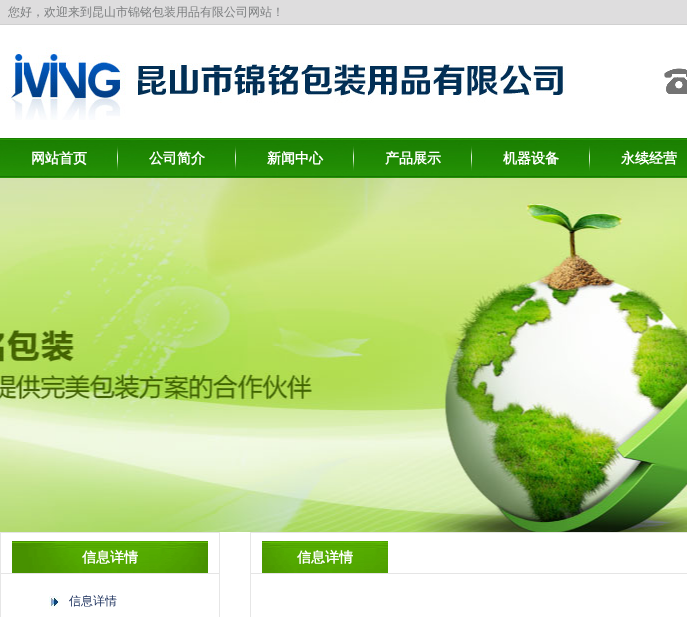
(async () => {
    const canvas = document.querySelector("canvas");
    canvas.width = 687;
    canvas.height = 617;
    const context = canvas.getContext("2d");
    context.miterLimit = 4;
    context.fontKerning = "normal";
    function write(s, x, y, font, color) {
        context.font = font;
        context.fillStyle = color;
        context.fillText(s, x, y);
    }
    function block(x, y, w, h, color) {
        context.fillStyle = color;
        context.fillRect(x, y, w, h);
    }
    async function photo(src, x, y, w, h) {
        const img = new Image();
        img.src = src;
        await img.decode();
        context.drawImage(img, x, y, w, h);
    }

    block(0, 0, 687, 617, "rgb(255, 255, 255)");
    block(0, 0, 687, 24, "rgb(222, 221, 222)");
    block(0, 24, 687, 1, "rgb(208, 208, 208)");
    write("您好，欢迎来到昆山市锦铭包装用品有限公司网站！", 8, 16, "500 12px WenQuanYi Zen Hei", "rgb(125, 127, 128)");
    await photo("media/1.png", 6, 47, 560, 73);
    await photo("media/2.png", 664, 68, 23, 26);
    await photo("media/3.png", 0, 138, 687, 40);
    await photo("media/4.png", 117, 146, 1, 25);
    write("网站首页", 31, 163, "bold 14px WenQuanYi Zen Hei", "rgb(255, 255, 255)");
    await photo("media/5.png", 235, 146, 1, 25);
    write("公司简介", 149, 163, "bold 14px WenQuanYi Zen Hei", "rgb(255, 255, 255)");
    await photo("media/6.png", 353, 146, 1, 25);
    write("新闻中心", 267, 163, "bold 14px WenQuanYi Zen Hei", "rgb(255, 255, 255)");
    await photo("media/7.png", 471, 146, 1, 25);
    write("产品展示", 385, 163, "bold 14px WenQuanYi Zen Hei", "rgb(255, 255, 255)");
    await photo("media/8.png", 589, 146, 1, 25);
    write("机器设备", 503, 163, "bold 14px WenQuanYi Zen Hei", "rgb(255, 255, 255)");
    write("永续经营", 621, 163, "bold 14px WenQuanYi Zen Hei", "rgb(255, 255, 255)");
    await photo("media/9.png", 0, 178, 687, 354);
    context.strokeStyle = "rgb(230, 230, 230)";
    context.strokeRect(0.5, 532.5, 219, 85);
    block(1, 573, 218, 1, "rgb(229, 229, 229)");
    await photo("media/10.png", 12, 541, 196, 32);
    write("信息详情", 82, 562, "bold 14px WenQuanYi Zen Hei", "rgb(255, 255, 255)");
    await photo("media/11.png", 49, 596, 11, 13);
    write("信息详情", 69, 605, "500 12px WenQuanYi Zen Hei", "rgb(25, 46, 91)");
    context.strokeRect(250.5, 532.5, 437, 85);
    block(251, 573, 436, 1, "rgb(229, 229, 229)");
    await photo("media/12.png", 262, 541, 126, 32);
    write("信息详情", 297, 562, "bold 14px WenQuanYi Zen Hei", "rgb(255, 255, 255)");
})();
